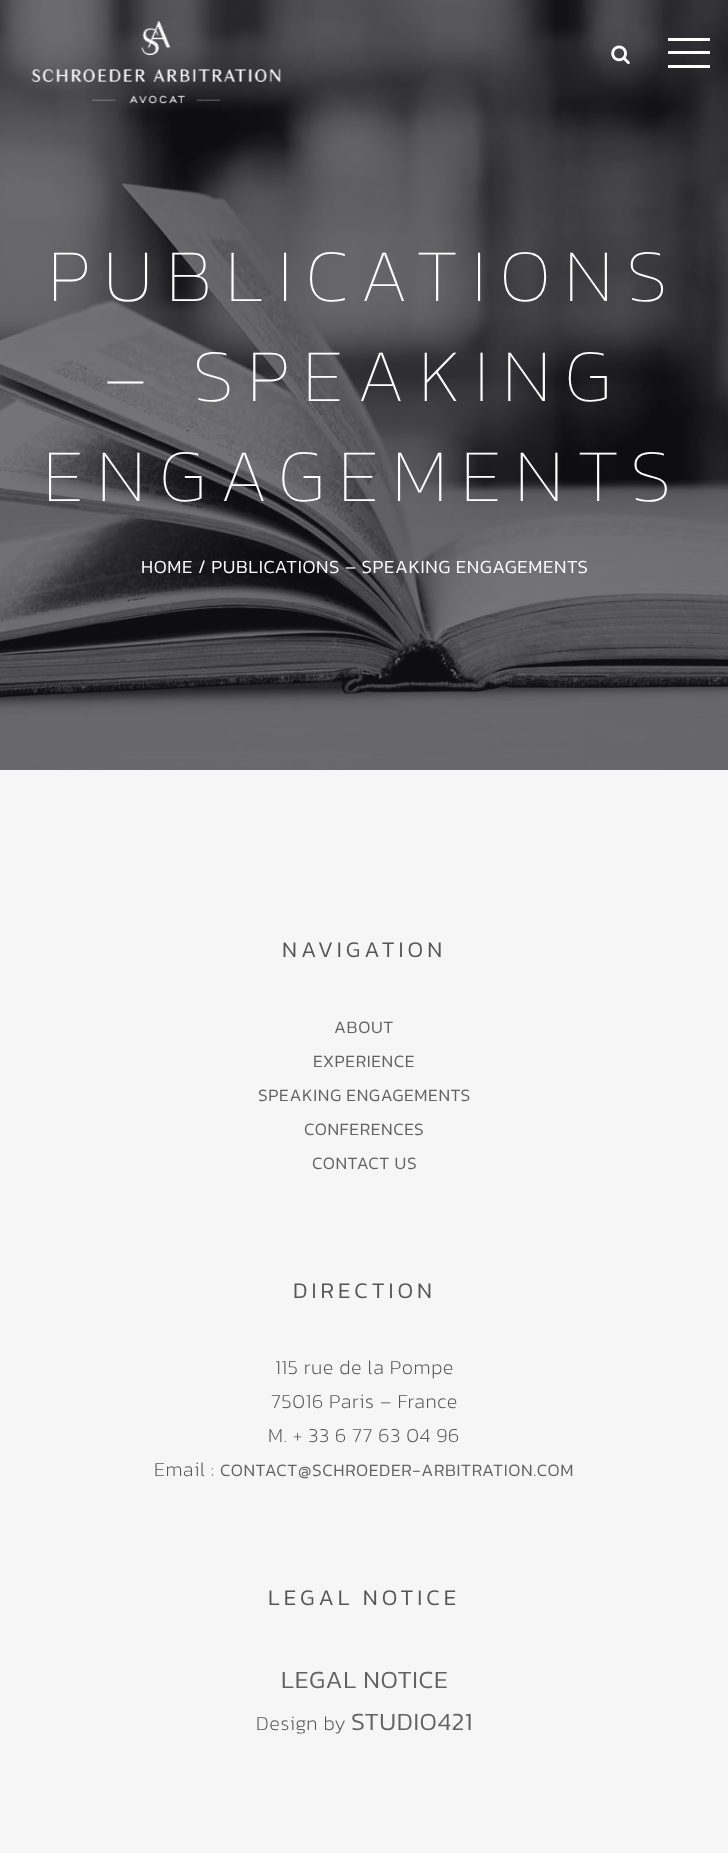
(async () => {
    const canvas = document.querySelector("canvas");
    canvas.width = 728;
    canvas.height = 1853;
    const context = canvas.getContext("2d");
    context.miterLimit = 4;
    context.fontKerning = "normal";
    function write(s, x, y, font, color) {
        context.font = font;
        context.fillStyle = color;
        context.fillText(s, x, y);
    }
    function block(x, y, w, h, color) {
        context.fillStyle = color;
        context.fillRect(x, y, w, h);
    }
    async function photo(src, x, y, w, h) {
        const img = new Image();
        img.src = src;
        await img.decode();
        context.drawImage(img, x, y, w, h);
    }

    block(0, 0, 728, 1853, "rgb(255, 255, 255)");
    await photo("media/3.png", 0, 0, 728, 770);
    await photo("media/1.png", 31, 21, 250, 83);
    await photo("media/2.png", 611, 45, 19, 20);
    block(668, 38, 42, 3, "rgb(255, 255, 255)");
    block(668, 51, 42, 3, "rgb(255, 255, 255)");
    block(668, 65, 42, 3, "rgb(255, 255, 255)");
    context.letterSpacing = "13.5px";
    write("PUBLICATIONS", 48, 301, "100 75px Kanit", "rgb(255, 255, 255)");
    write("– SPEAKING", 103, 401, "100 75px Kanit", "rgb(255, 255, 255)");
    write("ENGAGEMENTS", 43, 501, "100 75px Kanit", "rgb(255, 255, 255)");
    context.letterSpacing = "0.6px";
    write("HOME / PUBLICATIONS – SPEAKING ENGAGEMENTS", 141, 573, "300 18.75px Kanit", "rgb(255, 255, 255)");
    block(0, 770, 728, 1083, "rgb(246, 246, 246)");
    context.letterSpacing = "4px";
    write("NAVIGATION", 282, 957, "300 22.5px Kanit", "rgb(85, 85, 85)");
    context.letterSpacing = "0.6px";
    write("ABOUT", 334, 1033, "300 17.5px Kanit", "rgb(98, 98, 98)");
    write("EXPERIENCE", 313, 1067, "300 17.5px Kanit", "rgb(98, 98, 98)");
    write("SPEAKING ENGAGEMENTS", 258, 1101, "300 17.5px Kanit", "rgb(98, 98, 98)");
    write("CONFERENCES", 304, 1135, "300 17.5px Kanit", "rgb(98, 98, 98)");
    write("CONTACT US", 312, 1169, "300 17.5px Kanit", "rgb(98, 98, 98)");
    context.letterSpacing = "4px";
    write("DIRECTION", 293, 1298, "300 22.5px Kanit", "rgb(85, 85, 85)");
    context.letterSpacing = "0.6px";
    write("115 rue de la Pompe", 275, 1374, "200 20px Kanit", "rgb(85, 85, 85)");
    write("75016 Paris – France", 271, 1408, "200 20px Kanit", "rgb(85, 85, 85)");
    write("M. + 33 6 77 63 04 96", 268, 1442, "200 20px Kanit", "rgb(85, 85, 85)");
    write("Email :", 154, 1476, "200 20px Kanit", "rgb(85, 85, 85)");
    write("CONTACT@SCHROEDER-ARBITRATION.COM", 220, 1476, "300 17.5px Kanit", "rgb(98, 98, 98)");
    context.letterSpacing = "4px";
    write("LEGAL NOTICE", 268, 1605, "300 22.5px Kanit", "rgb(85, 85, 85)");
    context.letterSpacing = "0.6px";
    write("LEGAL NOTICE", 281, 1688, "300 25px Kanit", "rgb(98, 98, 98)");
    write("Design by", 256, 1730, "200 20px Kanit", "rgb(85, 85, 85)");
    write("STUDIO421", 351, 1730, "300 25px Kanit", "rgb(98, 98, 98)");
})();
